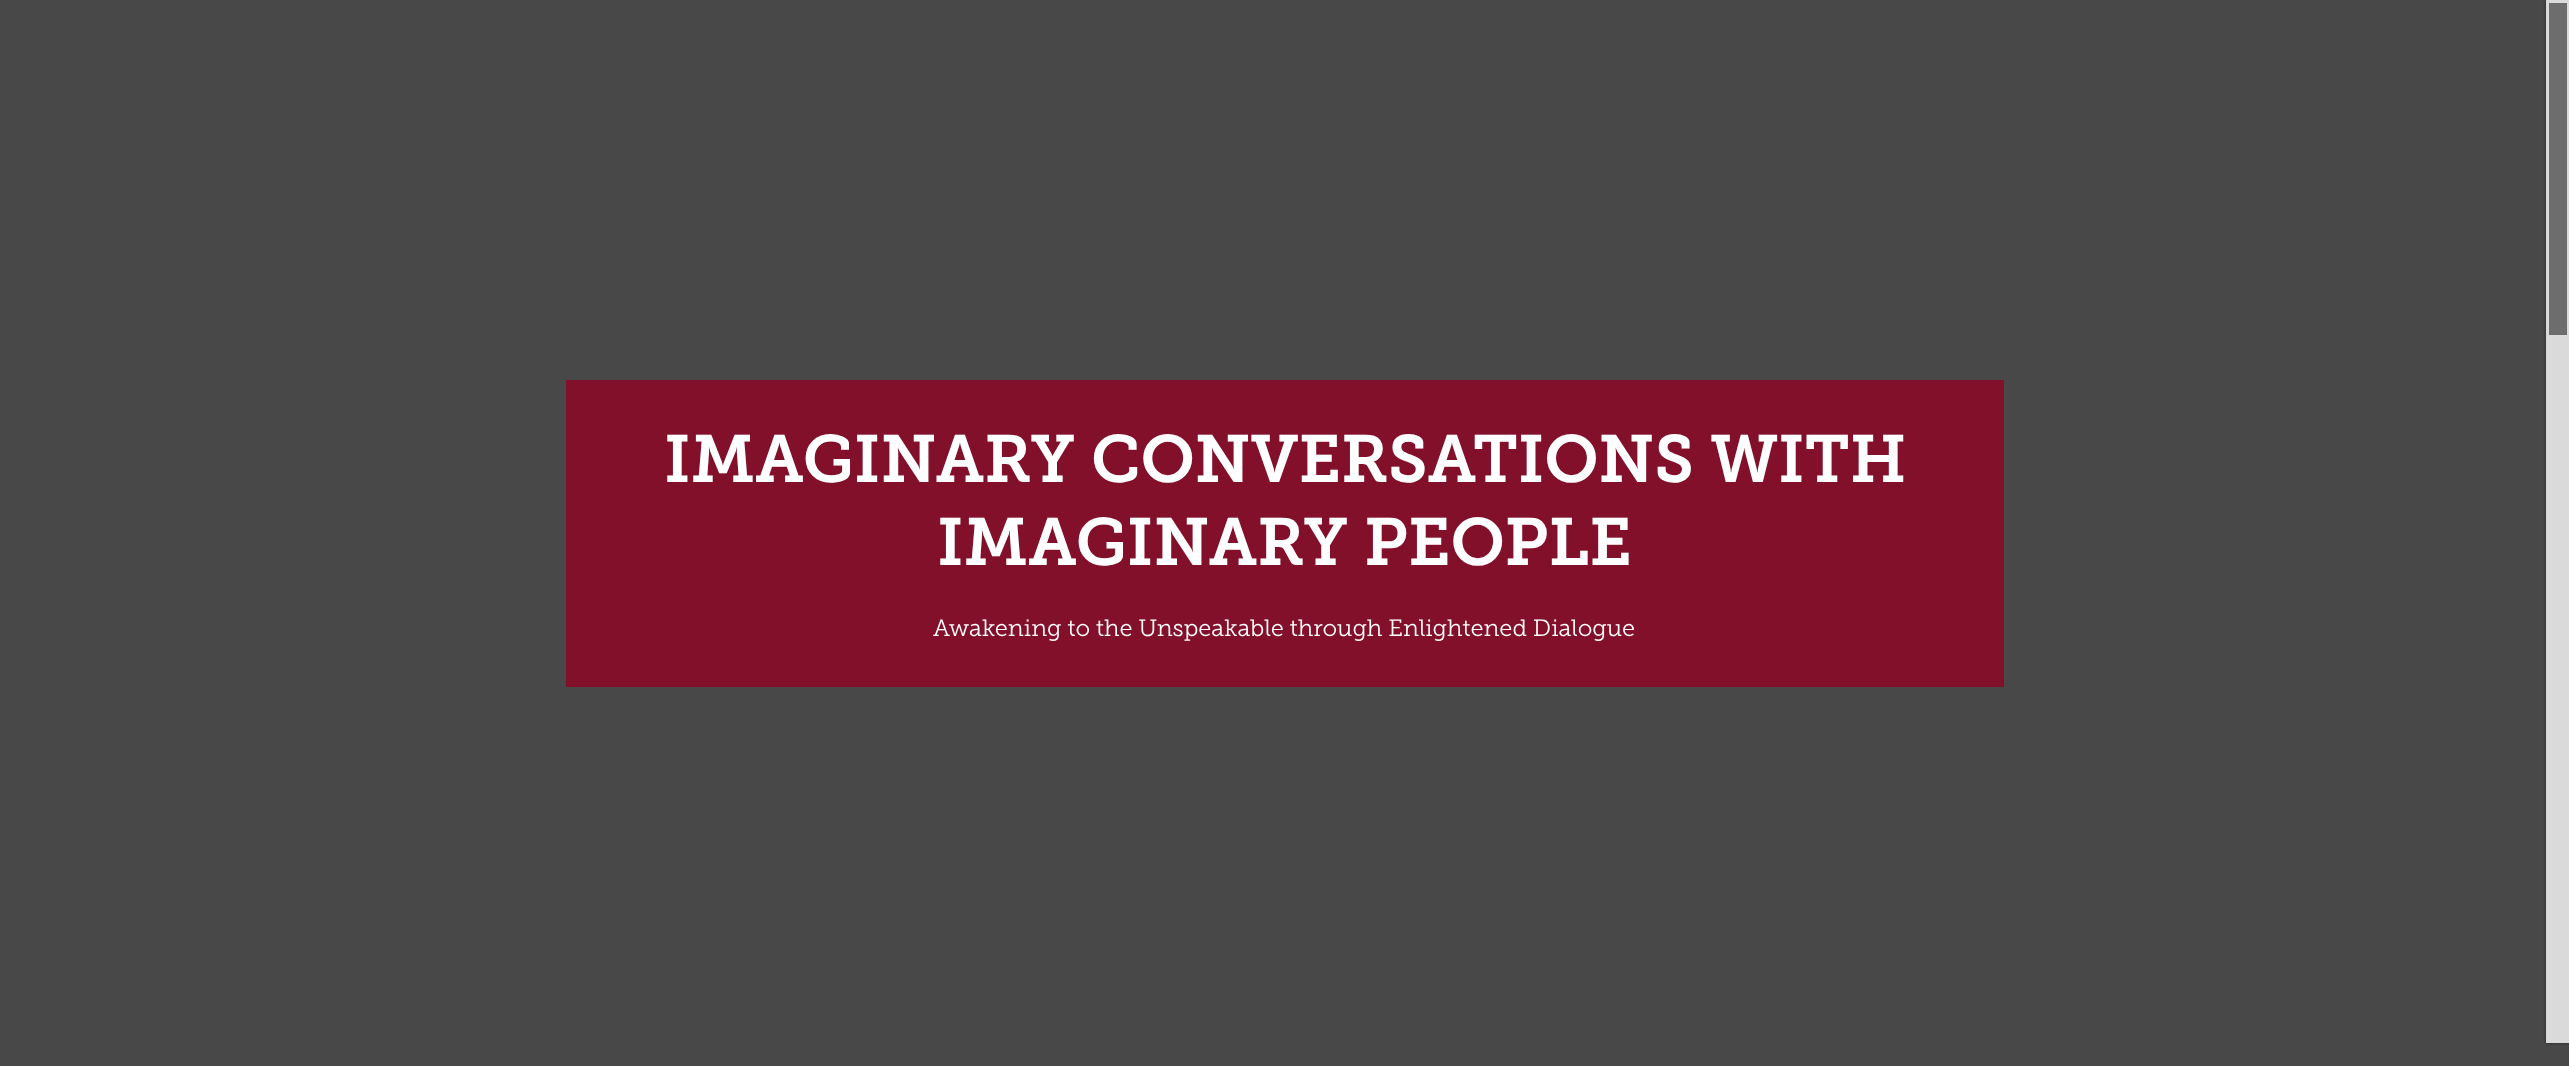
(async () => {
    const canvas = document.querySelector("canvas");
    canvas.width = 2569;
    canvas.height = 1066;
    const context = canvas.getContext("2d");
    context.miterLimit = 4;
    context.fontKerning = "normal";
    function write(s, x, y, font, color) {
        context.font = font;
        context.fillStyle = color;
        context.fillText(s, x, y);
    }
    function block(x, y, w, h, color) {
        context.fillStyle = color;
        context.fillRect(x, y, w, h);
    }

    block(0, 0, 2569, 1066, "rgb(72, 72, 72)");
    block(566, 380, 1438, 307, "rgb(131, 16, 43)");
    write("IMAGINARY CONVERSATIONS WITH", 664, 482, "600 66.4px 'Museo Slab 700'", "rgb(255, 255, 255)");
    write("IMAGINARY PEOPLE", 937, 565, "600 66.4px 'Museo Slab 700'", "rgb(255, 255, 255)");
    write("Awakening to the Unspeakable through Enlightened Dialogue", 933, 636, "300 23.6px 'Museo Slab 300'", "rgb(255, 255, 255)");
    context.save();
    context.beginPath();
    context.moveTo(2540, 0);
    context.lineTo(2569, 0);
    context.lineTo(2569, 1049);
    context.lineTo(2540, 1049);
    context.closePath();
    context.moveTo(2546, 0);
    context.lineTo(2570, 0);
    context.lineTo(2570, 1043);
    context.lineTo(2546, 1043);
    context.closePath();
    context.clip("evenodd");
    context.fillStyle = "rgba(0, 0, 0, 0.5)";
    context.filter = "blur(1.5px)";
    context.beginPath();
    context.rect(2546, 0, 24, 1043);
    context.fill();
    context.filter = "none";
    context.restore();
    block(2546, 0, 23, 1043, "rgba(255, 255, 255, 0.8)");
    block(2549, 3, 18, 332, "rgb(109, 109, 109)");
})();
